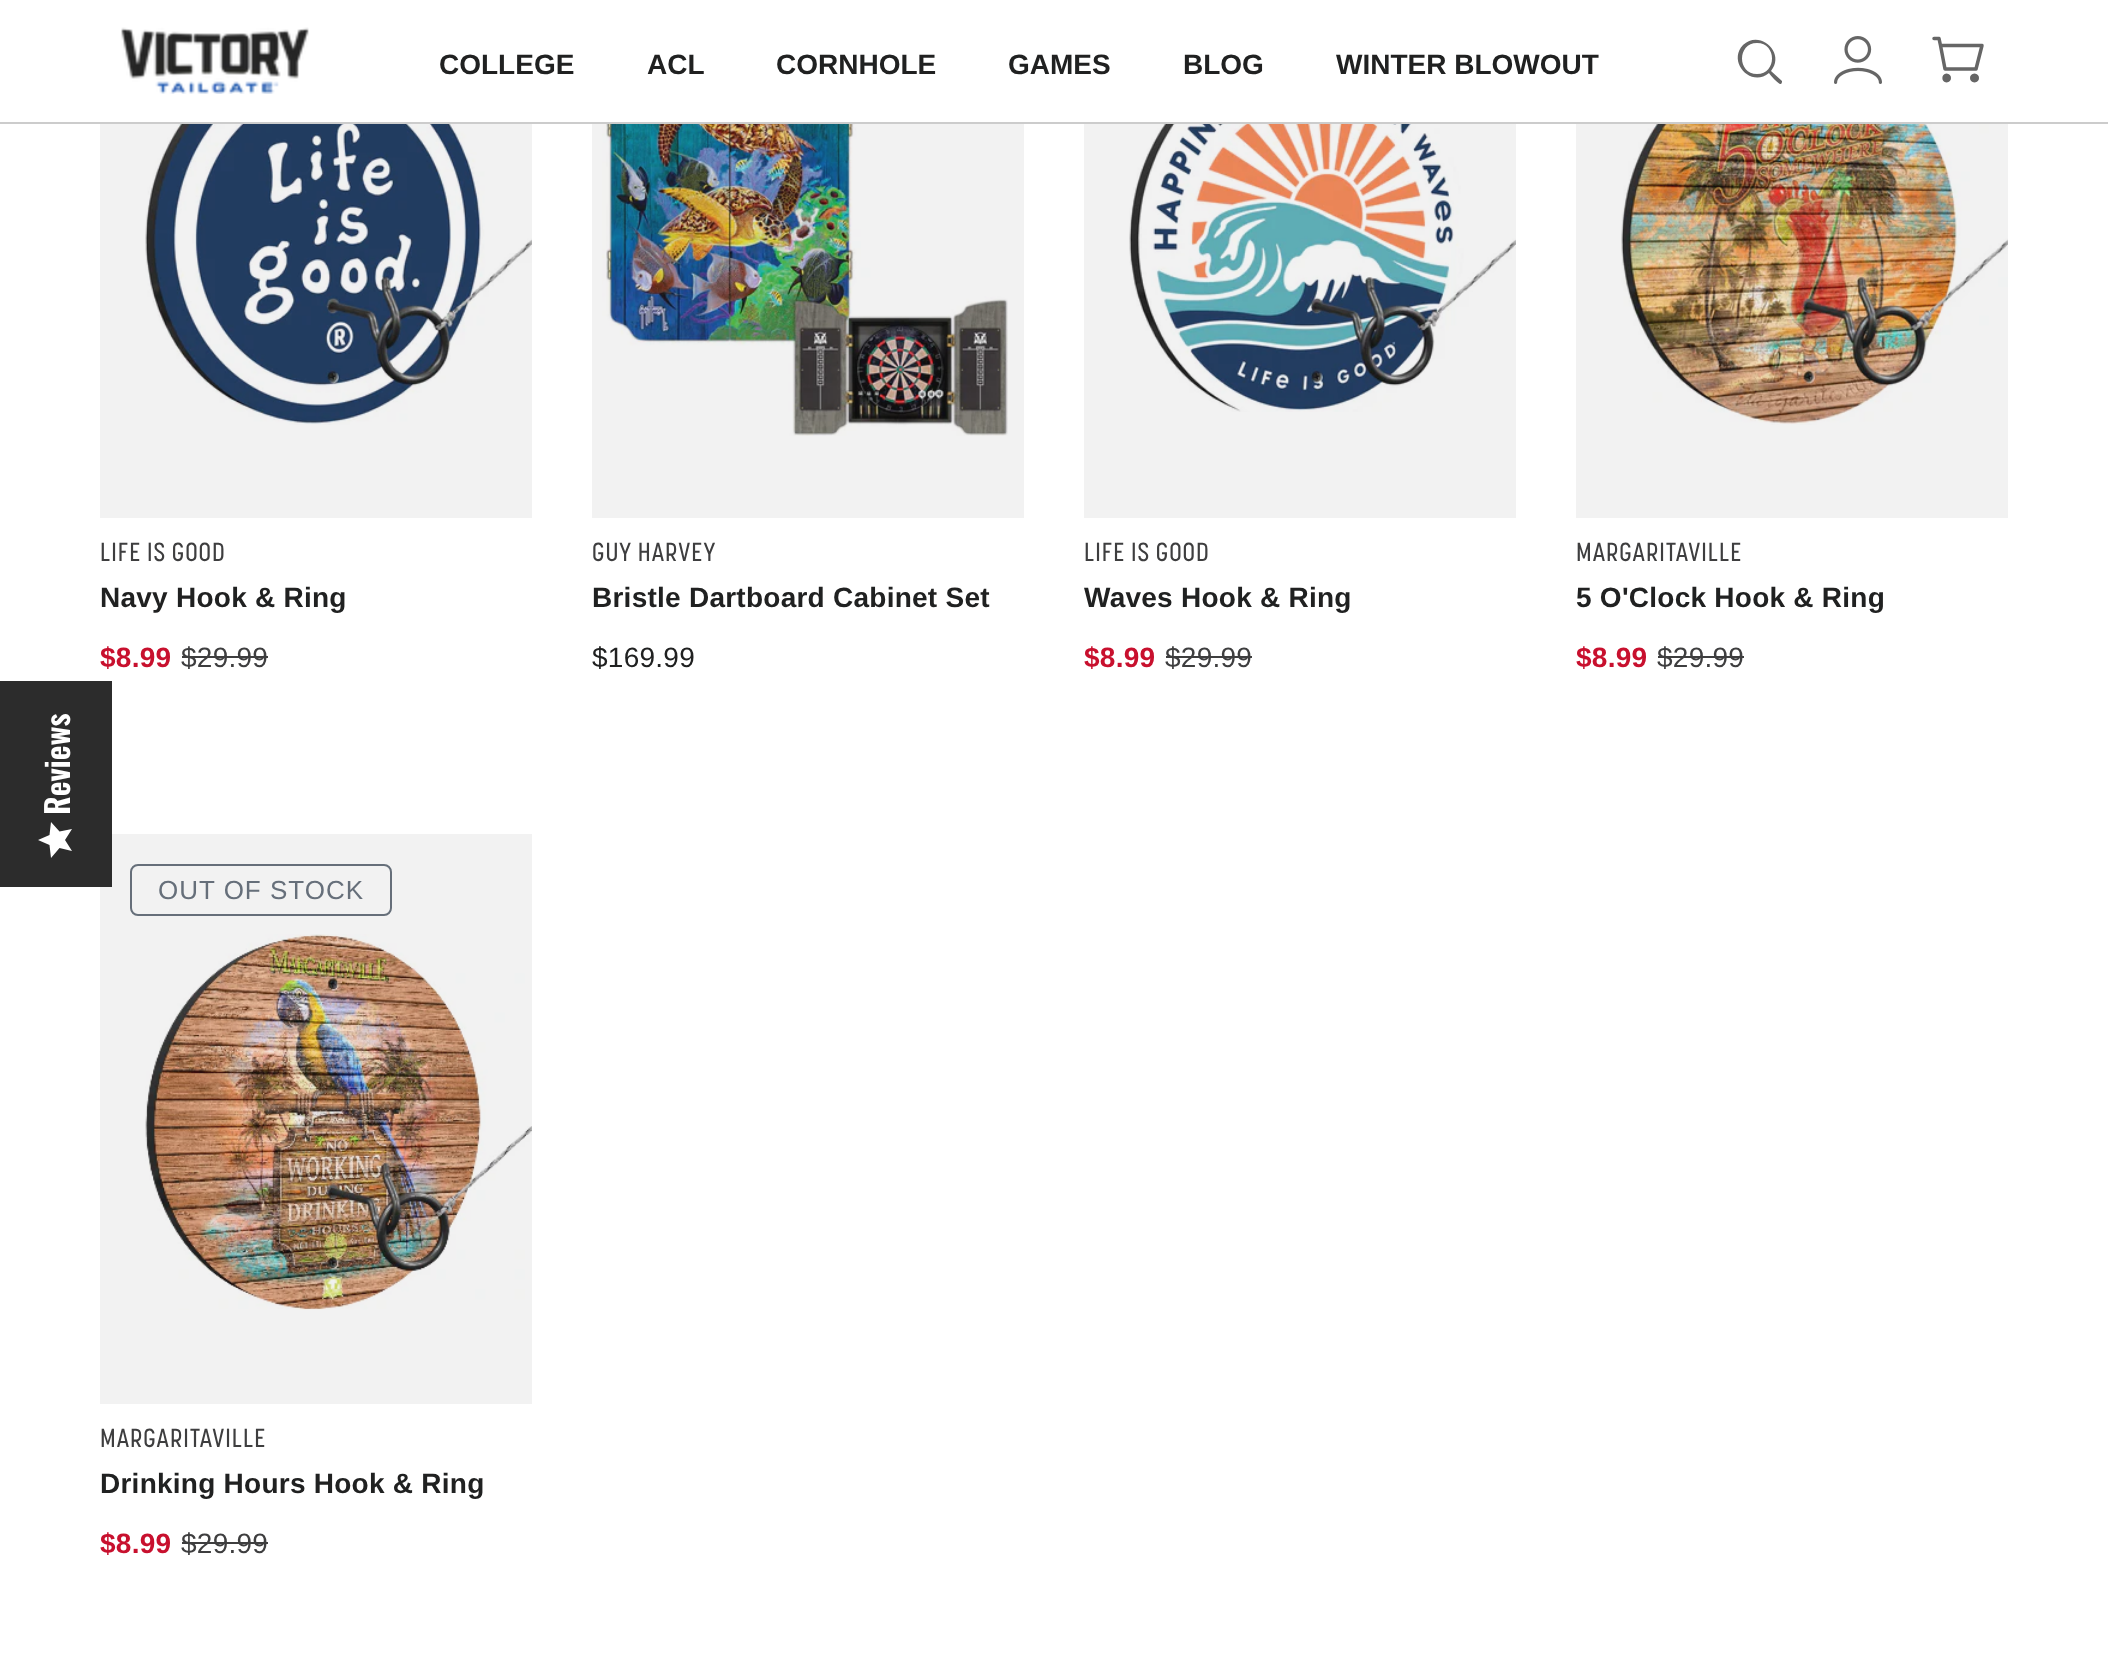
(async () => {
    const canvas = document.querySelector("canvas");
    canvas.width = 2108;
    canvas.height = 1680;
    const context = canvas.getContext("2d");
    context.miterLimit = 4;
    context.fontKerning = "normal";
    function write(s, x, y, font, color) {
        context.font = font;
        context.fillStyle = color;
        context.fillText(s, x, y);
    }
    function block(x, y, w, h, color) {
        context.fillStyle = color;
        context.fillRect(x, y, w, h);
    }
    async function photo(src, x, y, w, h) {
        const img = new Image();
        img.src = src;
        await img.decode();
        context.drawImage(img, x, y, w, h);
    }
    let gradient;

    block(0, 0, 2108, 1680, "rgb(255, 255, 255)");
    block(0, 122, 2108, 2, "rgb(204, 204, 204)");
    await photo("media/1.png", 121, 27, 188, 67);
    write("COLLEGE", 439, 74, "bold 28px Liberation Sans", "rgb(32, 33, 33)");
    write("ACL", 647, 74, "bold 28px Liberation Sans", "rgb(32, 33, 33)");
    write("CORNHOLE", 776, 74, "bold 28px Liberation Sans", "rgb(32, 33, 33)");
    write("GAMES", 1008, 74, "bold 28px Liberation Sans", "rgb(32, 33, 33)");
    write("BLOG", 1183, 74, "bold 28px Liberation Sans", "rgb(32, 33, 33)");
    write("WINTER BLOWOUT", 1336, 74, "bold 28px Liberation Sans", "rgb(32, 33, 33)");
    context.fillStyle = "rgb(102, 102, 102)";
    context.beginPath();
    context.moveTo(1782, 81);
    context.lineTo(1771, 71);
    context.bezierCurveTo(1786, 53, 1760, 29, 1743, 45);
    context.bezierCurveTo(1727, 62, 1751, 88, 1769, 73);
    context.bezierCurveTo(1770, 75, 1779, 85, 1781, 84);
    context.bezierCurveTo(1782, 83, 1782, 82, 1782, 81);
    context.closePath();
    context.moveTo(1757, 74);
    context.bezierCurveTo(1737, 74, 1737, 43, 1757, 43);
    context.bezierCurveTo(1777, 43, 1777, 74, 1757, 74);
    context.closePath();
    context.fill("evenodd");
    await photo("media/2.png", 1834, 36, 48, 48);
    context.beginPath();
    context.moveTo(1946.5, 82.5);
    context.bezierCurveTo(1952.5, 82.5, 1952.5, 73.5, 1946.5, 73.5);
    context.bezierCurveTo(1941, 73.5, 1941, 82.5, 1946.5, 82.5);
    context.closePath();
    context.moveTo(1974.5, 82.5);
    context.bezierCurveTo(1980.5, 82.5, 1980.5, 73.5, 1974.5, 73.5);
    context.bezierCurveTo(1968.5, 73.5, 1968.5, 82.5, 1974.5, 82.5);
    context.closePath();
    context.fill();
    context.beginPath();
    context.moveTo(1934, 38.5);
    context.lineTo(1939, 38.5);
    context.lineTo(1940.5, 45.5);
    context.moveTo(1940.5, 45.5);
    context.lineTo(1945, 69);
    context.lineTo(1976, 69);
    context.lineTo(1982, 45.5);
    context.closePath();
    context.strokeStyle = "rgb(102, 102, 102)";
    context.lineWidth = 3.5;
    context.lineCap = "round";
    context.lineJoin = "round";
    context.stroke();
    block(100, 834, 432, 570, "rgb(242, 242, 242)");
    block(0, 681, 112, 206, "rgb(44, 44, 44)");
    context.font = "600 32px Oswald";
    context.fillStyle = "rgb(255, 255, 255)";
    context.save();
    context.translate(70, 815);
    context.rotate(-90 * Math.PI / 180);
    context.fillText("Reviews", 0, 0);
    context.restore();
    gradient = context.createLinearGradient(38, 858, 38, 822);
    gradient.addColorStop(1, "rgb(255, 255, 255)");
    gradient.addColorStop(1, "rgb(234, 234, 234)");
    context.fillStyle = gradient;
    context.beginPath();
    context.moveTo(65, 840);
    context.lineTo(72, 829);
    context.lineTo(59.5, 831.5);
    context.lineTo(51, 822);
    context.lineTo(49.5, 835);
    context.lineTo(38, 840);
    context.lineTo(49.5, 845);
    context.lineTo(51, 858);
    context.lineTo(59.5, 848);
    context.lineTo(72, 851);
    context.closePath();
    context.fill();
    block(100, 124, 432, 394, "rgb(242, 242, 242)");
    await photo("media/3.png", 145, 124, 387, 301);
    context.letterSpacing = "1px";
    write("LIFE IS GOOD", 100, 561, "500 26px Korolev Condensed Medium", "rgb(62, 62, 63)");
    context.letterSpacing = "0.25px";
    write("Navy Hook & Ring", 100, 607, "bold 28px Liberation Sans", "rgb(32, 33, 33)");
    write("$8.99", 100, 667, "bold 28px Liberation Sans", "rgb(200, 16, 46)");
    write("$29.99", 181, 667, "28px Liberation Sans", "rgb(62, 62, 63)");
    block(182, 656, 86, 2, "rgb(62, 62, 63)");
    block(592, 124, 432, 394, "rgb(242, 242, 242)");
    await photo("media/4.png", 602, 124, 406, 312);
    context.letterSpacing = "1px";
    write("GUY HARVEY", 592, 561, "500 26px Korolev Condensed Medium", "rgb(62, 62, 63)");
    context.letterSpacing = "0.25px";
    write("Bristle Dartboard Cabinet Set", 592, 607, "bold 28px Liberation Sans", "rgb(32, 33, 33)");
    write("$169.99", 592, 667, "28px Liberation Sans", "rgb(32, 33, 33)");
    block(1084, 124, 432, 394, "rgb(242, 242, 242)");
    await photo("media/5.png", 1129, 124, 387, 288);
    context.letterSpacing = "1px";
    write("LIFE IS GOOD", 1084, 561, "500 26px Korolev Condensed Medium", "rgb(62, 62, 63)");
    context.letterSpacing = "0.25px";
    write("Waves Hook & Ring", 1084, 607, "bold 28px Liberation Sans", "rgb(32, 33, 33)");
    write("$8.99", 1084, 667, "bold 28px Liberation Sans", "rgb(200, 16, 46)");
    write("$29.99", 1165, 667, "28px Liberation Sans", "rgb(62, 62, 63)");
    block(1166, 656, 86, 2, "rgb(62, 62, 63)");
    block(1576, 124, 432, 394, "rgb(242, 242, 242)");
    await photo("media/6.png", 1621, 124, 387, 301);
    context.letterSpacing = "1px";
    write("MARGARITAVILLE", 1576, 561, "500 26px Korolev Condensed Medium", "rgb(62, 62, 63)");
    context.letterSpacing = "0.25px";
    write("5 O'Clock Hook & Ring", 1576, 607, "bold 28px Liberation Sans", "rgb(32, 33, 33)");
    write("$8.99", 1576, 667, "bold 28px Liberation Sans", "rgb(200, 16, 46)");
    write("$29.99", 1657, 667, "28px Liberation Sans", "rgb(62, 62, 63)");
    block(1658, 656, 86, 2, "rgb(62, 62, 63)");
    context.beginPath();
    context.roundRect(131, 865, 260, 50, 7);
    context.strokeStyle = "rgb(102, 111, 122)";
    context.lineWidth = 2;
    context.lineJoin = "miter";
    context.stroke();
    context.letterSpacing = "1px";
    write("OUT OF STOCK", 158, 899, "26px Liberation Sans", "rgb(102, 111, 122)");
    await photo("media/7.png", 145, 934, 387, 376);
    write("MARGARITAVILLE", 100, 1447, "500 26px Korolev Condensed Medium", "rgb(62, 62, 63)");
    context.letterSpacing = "0.25px";
    write("Drinking Hours Hook & Ring", 100, 1493, "bold 28px Liberation Sans", "rgb(32, 33, 33)");
    write("$8.99", 100, 1553, "bold 28px Liberation Sans", "rgb(200, 16, 46)");
    write("$29.99", 181, 1553, "28px Liberation Sans", "rgb(62, 62, 63)");
    block(182, 1542, 86, 2, "rgb(62, 62, 63)");
})();
